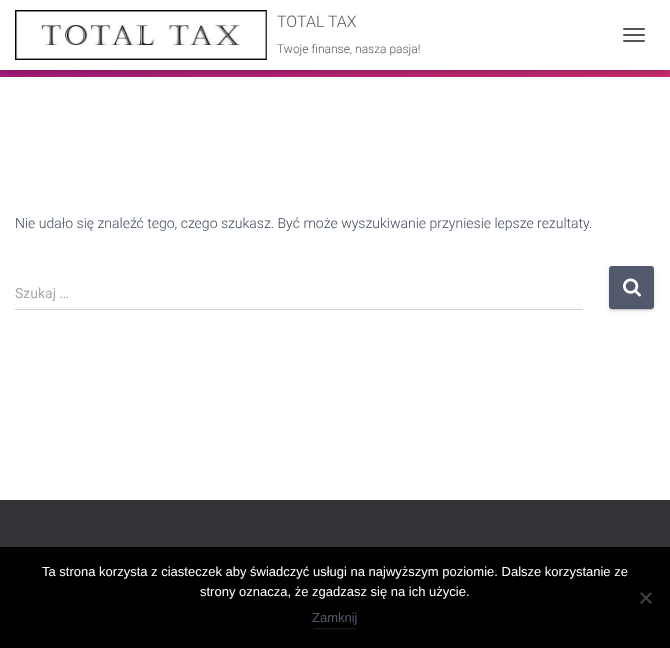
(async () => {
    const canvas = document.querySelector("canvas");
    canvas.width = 670;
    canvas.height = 648;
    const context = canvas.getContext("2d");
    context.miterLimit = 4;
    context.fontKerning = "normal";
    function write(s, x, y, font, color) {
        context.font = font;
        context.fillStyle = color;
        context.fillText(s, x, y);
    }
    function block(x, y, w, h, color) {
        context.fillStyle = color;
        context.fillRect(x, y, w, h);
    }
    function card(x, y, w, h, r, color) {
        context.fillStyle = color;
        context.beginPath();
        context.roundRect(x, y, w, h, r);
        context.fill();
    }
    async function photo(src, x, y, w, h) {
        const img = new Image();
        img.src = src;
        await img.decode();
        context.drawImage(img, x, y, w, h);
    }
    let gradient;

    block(0, 0, 670, 648, "rgb(255, 255, 255)");
    gradient = context.createLinearGradient(64, 201, 607, -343);
    gradient.addColorStop(0, "rgb(168, 29, 132)");
    gradient.addColorStop(1, "rgb(234, 57, 111)");
    context.fillStyle = gradient;
    context.fillRect(0, 70, 670, 7);
    context.fillStyle = "rgba(0, 0, 0, 0.12)";
    context.filter = "blur(15px)";
    context.beginPath();
    context.rect(-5, 78, 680, 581);
    context.fill();
    context.filter = "none";
    block(0, 77, 670, 423, "rgb(255, 255, 255)");
    context.fillStyle = "rgba(0, 0, 0, 0.1)";
    context.filter = "blur(2.5px)";
    context.beginPath();
    context.rect(2, 6, 666, 66);
    context.fill();
    context.filter = "none";
    context.fillStyle = "rgba(0, 0, 0, 0.12)";
    context.filter = "blur(5px)";
    context.beginPath();
    context.rect(0, 1, 670, 70);
    context.fill();
    context.filter = "none";
    context.fillStyle = "rgba(0, 0, 0, 0.42)";
    context.filter = "blur(5px)";
    context.beginPath();
    context.rect(6, 7, 658, 58);
    context.fill();
    context.filter = "none";
    block(0, 0, 670, 70, "rgb(255, 255, 255)");
    await photo("media/1.png", 15, 10, 252, 50);
    write("TOTAL TAX", 277, 27, "300 16px Roboto", "rgb(85, 85, 85)");
    write("Twoje finanse, nasza pasja!", 277, 53, "300 12px Roboto", "rgb(85, 85, 85)");
    card(623, 28, 22, 2, 1, "rgb(85, 85, 85)");
    card(623, 34, 22, 2, 1, "rgb(85, 85, 85)");
    card(623, 40, 22, 2, 1, "rgb(85, 85, 85)");
    write("Nie udało się znaleźć tego, czego szukasz. Być może wyszukiwanie przyniesie lepsze rezultaty.", 15, 228, "300 14px Roboto", "rgb(60, 72, 88)");
    write("Szukaj …", 15, 298, "14px Roboto", "rgb(170, 170, 170)");
    block(15, 309, 568, 1, "rgb(210, 210, 210)");
    context.fillStyle = "rgba(83, 89, 109, 0.12)";
    context.filter = "blur(2.5px)";
    context.beginPath();
    context.roundRect(609, 267, 45, 43, 3);
    context.fill();
    context.filter = "none";
    context.fillStyle = "rgba(83, 89, 109, 0.2)";
    context.filter = "blur(0.5px)";
    context.beginPath();
    context.roundRect(611, 271, 41, 39, 1);
    context.fill();
    context.filter = "none";
    context.fillStyle = "rgba(83, 89, 109, 0.14)";
    context.filter = "blur(1px)";
    context.beginPath();
    context.roundRect(609, 268, 45, 43, 3);
    context.fill();
    context.filter = "none";
    card(609, 266, 45, 43, 3, "rgb(83, 89, 109)");
    await photo("media/2.png", 623, 278, 18, 19);
    block(0, 500, 670, 47, "rgb(50, 52, 55)");
    block(0, 547, 670, 101, "rgb(0, 0, 0)");
    write("Ta strona korzysta z ciasteczek aby świadczyć usługi na najwyższym poziomie. Dalsze korzystanie ze", 42, 576, "13px Liberation Sans", "rgb(255, 255, 255)");
    write("strony oznacza, że zgadzasz się na ich użycie.", 200, 596, "13px Liberation Sans", "rgb(255, 255, 255)");
    context.fillStyle = "rgb(64, 64, 64)";
    context.beginPath();
    context.moveTo(650.5, 592);
    context.lineTo(652, 593.5);
    context.lineTo(641.5, 604);
    context.lineTo(640, 602.5);
    context.closePath();
    context.fill();
    context.beginPath();
    context.moveTo(640, 593.5);
    context.lineTo(641.5, 592);
    context.lineTo(652, 602.5);
    context.lineTo(650.5, 604);
    context.closePath();
    context.fill();
    context.save();
    context.beginPath();
    context.rect(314, 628, 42, 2);
    context.clip();
    context.fillStyle = "rgba(83, 89, 109, 0.2)";
    context.filter = "blur(0.5px)";
    context.beginPath();
    context.rect(314, 613, 42, 16);
    context.fill();
    context.filter = "none";
    context.restore();
    context.save();
    context.beginPath();
    context.moveTo(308, 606);
    context.lineTo(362, 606);
    context.lineTo(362, 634);
    context.lineTo(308, 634);
    context.closePath();
    context.moveTo(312, 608);
    context.lineTo(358, 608);
    context.lineTo(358, 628);
    context.lineTo(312, 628);
    context.closePath();
    context.clip("evenodd");
    context.fillStyle = "rgba(83, 89, 109, 0.14)";
    context.filter = "blur(1px)";
    context.beginPath();
    context.rect(312, 610, 46, 20);
    context.fill();
    context.filter = "none";
    context.restore();
    write("Zamknij", 312, 622, "13px Liberation Sans", "rgb(83, 89, 109)");
})();
